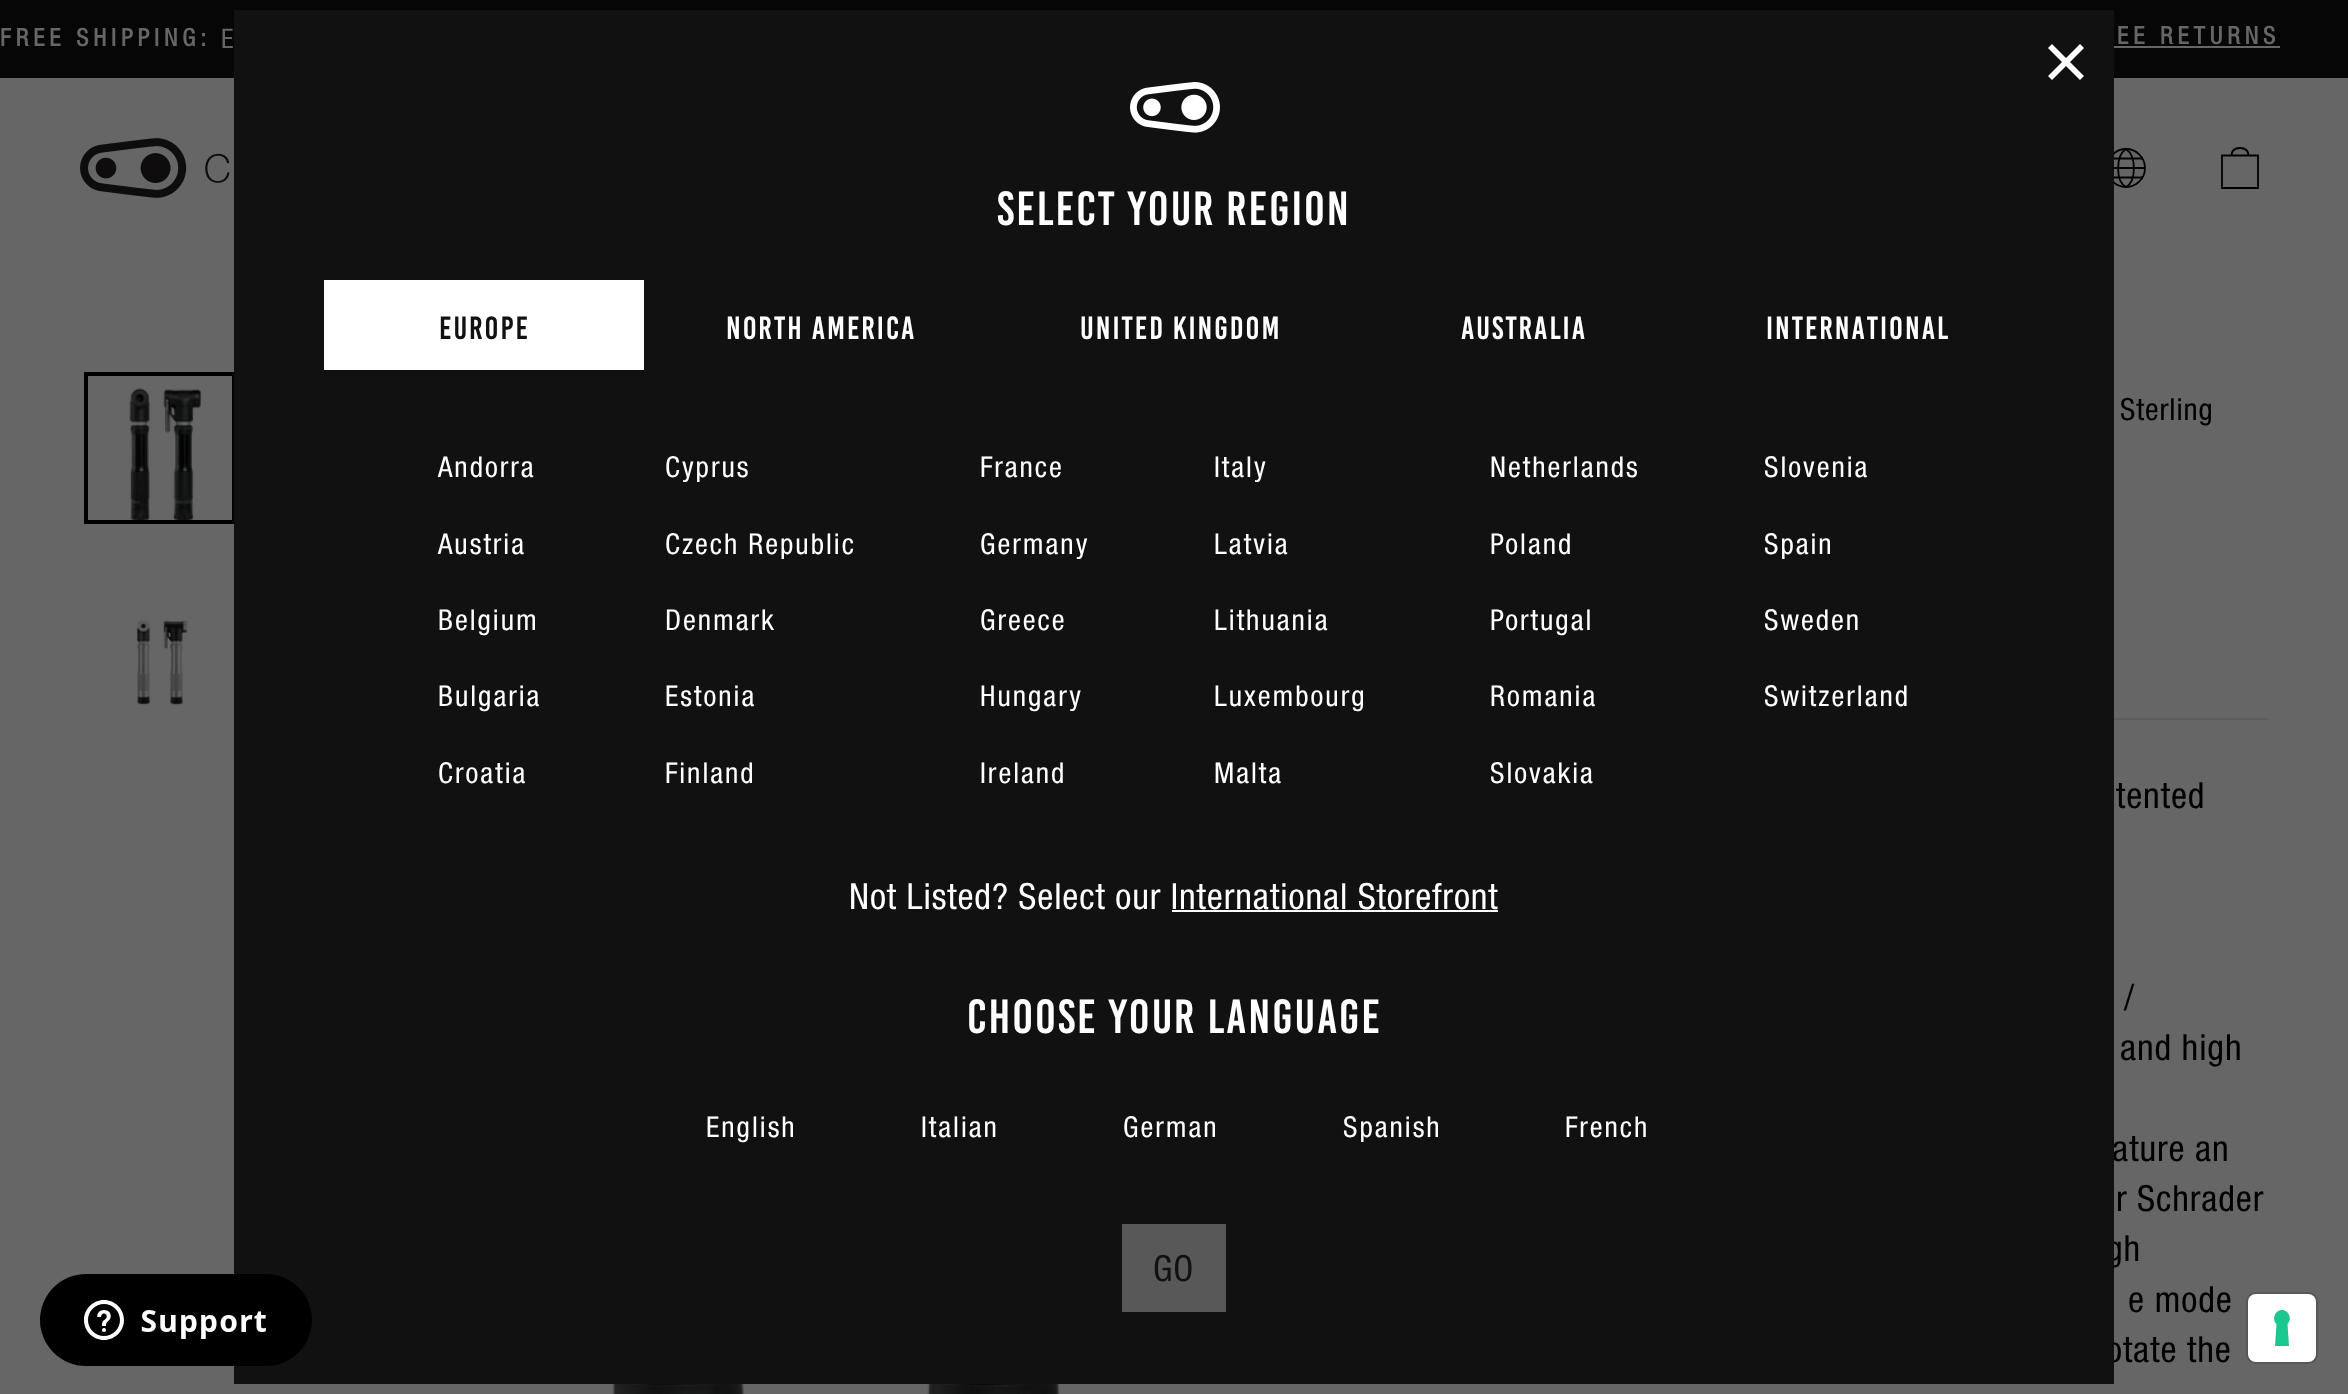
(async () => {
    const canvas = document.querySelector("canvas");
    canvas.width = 2348;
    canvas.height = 1394;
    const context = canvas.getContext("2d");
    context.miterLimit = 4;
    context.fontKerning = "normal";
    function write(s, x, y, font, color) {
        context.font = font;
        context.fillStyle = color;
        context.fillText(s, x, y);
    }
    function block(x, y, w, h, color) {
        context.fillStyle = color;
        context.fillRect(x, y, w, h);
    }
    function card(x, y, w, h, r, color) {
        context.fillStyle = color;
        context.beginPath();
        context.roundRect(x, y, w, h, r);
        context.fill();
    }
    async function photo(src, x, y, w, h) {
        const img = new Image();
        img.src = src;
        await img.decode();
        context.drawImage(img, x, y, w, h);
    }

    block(0, 0, 2348, 1394, "rgb(102, 102, 102)");
    block(0, 0, 2348, 78, "rgb(6, 6, 6)");
    context.letterSpacing = "4.9px";
    write("FREE SHIPPING:", 0, 46, "bold 24.25px Helvetica Neue", "rgb(102, 102, 102)");
    context.letterSpacing = "0.9px";
    write("E", 221, 48, "27px Helvetica Neue", "rgb(102, 102, 102)");
    context.letterSpacing = "4.9px";
    write("EE RETURNS", 2117, 44, "bold 24.25px Helvetica Neue", "rgb(102, 102, 102)");
    block(2114, 46, 166, 2, "rgb(102, 102, 102)");
    await photo("media/1.png", 80, 138, 150, 60);
    context.beginPath();
    context.arc(2126, 168, 19, 0, Math.PI * 2);
    context.strokeStyle = "rgb(0, 0, 0)";
    context.lineWidth = 1.8;
    context.stroke();
    context.beginPath();
    context.moveTo(2109.5, 158.5);
    context.lineTo(2142.5, 158.5);
    context.moveTo(2107, 168);
    context.lineTo(2145, 168);
    context.moveTo(2109.5, 177.5);
    context.lineTo(2142.5, 177.5);
    context.moveTo(2126, 149);
    context.bezierCurveTo(2115.5, 156, 2115.5, 181, 2126, 187);
    context.moveTo(2126, 149);
    context.bezierCurveTo(2136.5, 156, 2136.5, 181, 2126, 187);
    context.stroke();
    context.beginPath();
    context.moveTo(2222, 155.5);
    context.lineTo(2258, 155.5);
    context.lineTo(2258, 188);
    context.lineTo(2222, 188);
    context.closePath();
    context.moveTo(2231.5, 156);
    context.bezierCurveTo(2231.5, 149.5, 2235.5, 148, 2240, 148);
    context.bezierCurveTo(2244.5, 148, 2248.5, 149.5, 2248.5, 156);
    context.stroke();
    await photo("media/2.png", 129, 388, 73, 132);
    context.lineWidth = 4;
    context.strokeRect(86, 374, 148, 148);
    await photo("media/3.png", 136, 620, 52, 86);
    await photo("media/4.png", 612, 1384, 448, 10);
    context.letterSpacing = "0.9px";
    write("Sterling", 2120, 420, "30.5px Helvetica Neue", "rgb(0, 0, 0)");
    block(2114, 718, 154, 2, "rgb(93, 93, 90)");
    write("tented", 2116, 808, "36px Helvetica Neue", "rgb(0, 0, 0)");
    write("/", 2124, 1010, "36px Helvetica Neue", "rgb(0, 0, 0)");
    write("and high", 2120, 1060, "36px Helvetica Neue", "rgb(0, 0, 0)");
    write("ature an", 2112, 1161, "36px Helvetica Neue", "rgb(0, 0, 0)");
    write("r Schrader", 2116, 1211, "36px Helvetica Neue", "rgb(0, 0, 0)");
    write("gh", 2106, 1261, "36px Helvetica Neue", "rgb(0, 0, 0)");
    write("e mode", 2128, 1312, "36px Helvetica Neue", "rgb(0, 0, 0)");
    write("otate the", 2106, 1362, "36px Helvetica Neue", "rgb(0, 0, 0)");
    block(234, 10, 1880, 1374, "rgb(17, 17, 17)");
    context.fillStyle = "rgb(255, 255, 255)";
    context.beginPath();
    context.moveTo(2080, 44);
    context.lineTo(2066, 58);
    context.lineTo(2052, 44);
    context.lineTo(2048, 48);
    context.lineTo(2062, 62);
    context.lineTo(2048, 76);
    context.lineTo(2052, 80);
    context.lineTo(2066, 66);
    context.lineTo(2080, 80);
    context.lineTo(2084, 76);
    context.lineTo(2070, 62);
    context.lineTo(2084, 48);
    context.closePath();
    context.fill();
    await photo("media/5.png", 1130, 82, 90, 51);
    context.letterSpacing = "2px";
    write("SELECT YOUR REGION", 997, 225, "48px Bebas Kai", "rgb(255, 255, 255)");
    block(324, 280, 320, 90, "rgb(255, 255, 255)");
    write("EUROPE", 439, 339, "32px Bebas Kai", "rgb(17, 17, 17)");
    write("NORTH AMERICA", 726, 339, "32px Bebas Kai", "rgb(255, 255, 255)");
    write("UNITED KINGDOM", 1080, 339, "32px Bebas Kai", "rgb(255, 255, 255)");
    write("AUSTRALIA", 1461, 339, "32px Bebas Kai", "rgb(255, 255, 255)");
    write("INTERNATIONAL", 1766, 339, "32px Bebas Kai", "rgb(255, 255, 255)");
    write("Andorra", 438, 477, "28.75px Helvetica Neue", "rgb(255, 255, 255)");
    write("Cyprus", 665, 477, "28.75px Helvetica Neue", "rgb(255, 255, 255)");
    write("France", 980, 477, "28.75px Helvetica Neue", "rgb(255, 255, 255)");
    write("Italy", 1214, 477, "28.75px Helvetica Neue", "rgb(255, 255, 255)");
    write("Netherlands", 1490, 477, "28.75px Helvetica Neue", "rgb(255, 255, 255)");
    write("Slovenia", 1764, 477, "28.75px Helvetica Neue", "rgb(255, 255, 255)");
    write("Austria", 438, 554, "28.75px Helvetica Neue", "rgb(255, 255, 255)");
    write("Czech Republic", 665, 554, "28.75px Helvetica Neue", "rgb(255, 255, 255)");
    write("Germany", 980, 554, "28.75px Helvetica Neue", "rgb(255, 255, 255)");
    write("Latvia", 1214, 554, "28.75px Helvetica Neue", "rgb(255, 255, 255)");
    write("Poland", 1490, 554, "28.75px Helvetica Neue", "rgb(255, 255, 255)");
    write("Spain", 1764, 554, "28.75px Helvetica Neue", "rgb(255, 255, 255)");
    write("Belgium", 438, 630, "28.75px Helvetica Neue", "rgb(255, 255, 255)");
    write("Denmark", 665, 630, "28.75px Helvetica Neue", "rgb(255, 255, 255)");
    write("Greece", 980, 630, "28.75px Helvetica Neue", "rgb(255, 255, 255)");
    write("Lithuania", 1214, 630, "28.75px Helvetica Neue", "rgb(255, 255, 255)");
    write("Portugal", 1490, 630, "28.75px Helvetica Neue", "rgb(255, 255, 255)");
    write("Sweden", 1764, 630, "28.75px Helvetica Neue", "rgb(255, 255, 255)");
    write("Bulgaria", 438, 706, "28.75px Helvetica Neue", "rgb(255, 255, 255)");
    write("Estonia", 665, 706, "28.75px Helvetica Neue", "rgb(255, 255, 255)");
    write("Hungary", 980, 706, "28.75px Helvetica Neue", "rgb(255, 255, 255)");
    write("Luxembourg", 1214, 706, "28.75px Helvetica Neue", "rgb(255, 255, 255)");
    write("Romania", 1490, 706, "28.75px Helvetica Neue", "rgb(255, 255, 255)");
    write("Switzerland", 1764, 706, "28.75px Helvetica Neue", "rgb(255, 255, 255)");
    write("Croatia", 438, 783, "28.75px Helvetica Neue", "rgb(255, 255, 255)");
    write("Finland", 665, 783, "28.75px Helvetica Neue", "rgb(255, 255, 255)");
    write("Ireland", 980, 783, "28.75px Helvetica Neue", "rgb(255, 255, 255)");
    write("Malta", 1214, 783, "28.75px Helvetica Neue", "rgb(255, 255, 255)");
    write("Slovakia", 1490, 783, "28.75px Helvetica Neue", "rgb(255, 255, 255)");
    context.letterSpacing = "0.9px";
    write("Not Listed? Select our International Storefront", 849, 909, "36px Helvetica Neue", "rgb(255, 255, 255)");
    block(1172, 910, 326, 2, "rgb(255, 255, 255)");
    context.letterSpacing = "2px";
    write("CHOOSE YOUR LANGUAGE", 967, 1033, "48px Bebas Kai", "rgb(255, 255, 255)");
    write("English", 706, 1137, "28.75px Helvetica Neue", "rgb(255, 255, 255)");
    write("Italian", 921, 1137, "28.75px Helvetica Neue", "rgb(255, 255, 255)");
    write("German", 1123, 1137, "28.75px Helvetica Neue", "rgb(255, 255, 255)");
    write("Spanish", 1343, 1137, "28.75px Helvetica Neue", "rgb(255, 255, 255)");
    write("French", 1565, 1137, "28.75px Helvetica Neue", "rgb(255, 255, 255)");
    block(1122, 1224, 104, 88, "rgb(88, 88, 88)");
    context.letterSpacing = "0.9px";
    write("GO", 1153, 1281, "36px Helvetica Neue", "rgb(17, 17, 17)");
    await photo("media/6.png", 40, 1274, 272, 92);
    context.beginPath();
    context.roundRect(2247, 1293, 70, 70, 9);
    context.strokeStyle = "rgb(87, 87, 87)";
    context.lineWidth = 2;
    context.stroke();
    card(2248, 1294, 68, 68, 8, "rgb(255, 255, 255)");
    context.fillStyle = "rgb(28, 198, 145)";
    context.beginPath();
    context.moveTo(2282, 1310);
    context.bezierCurveTo(2289, 1310, 2292.5, 1319.5, 2287.5, 1324);
    context.lineTo(2289, 1346);
    context.lineTo(2275, 1346);
    context.lineTo(2276.5, 1324);
    context.bezierCurveTo(2271.5, 1319.5, 2275, 1310, 2282, 1310);
    context.closePath();
    context.fill("evenodd");
})();
